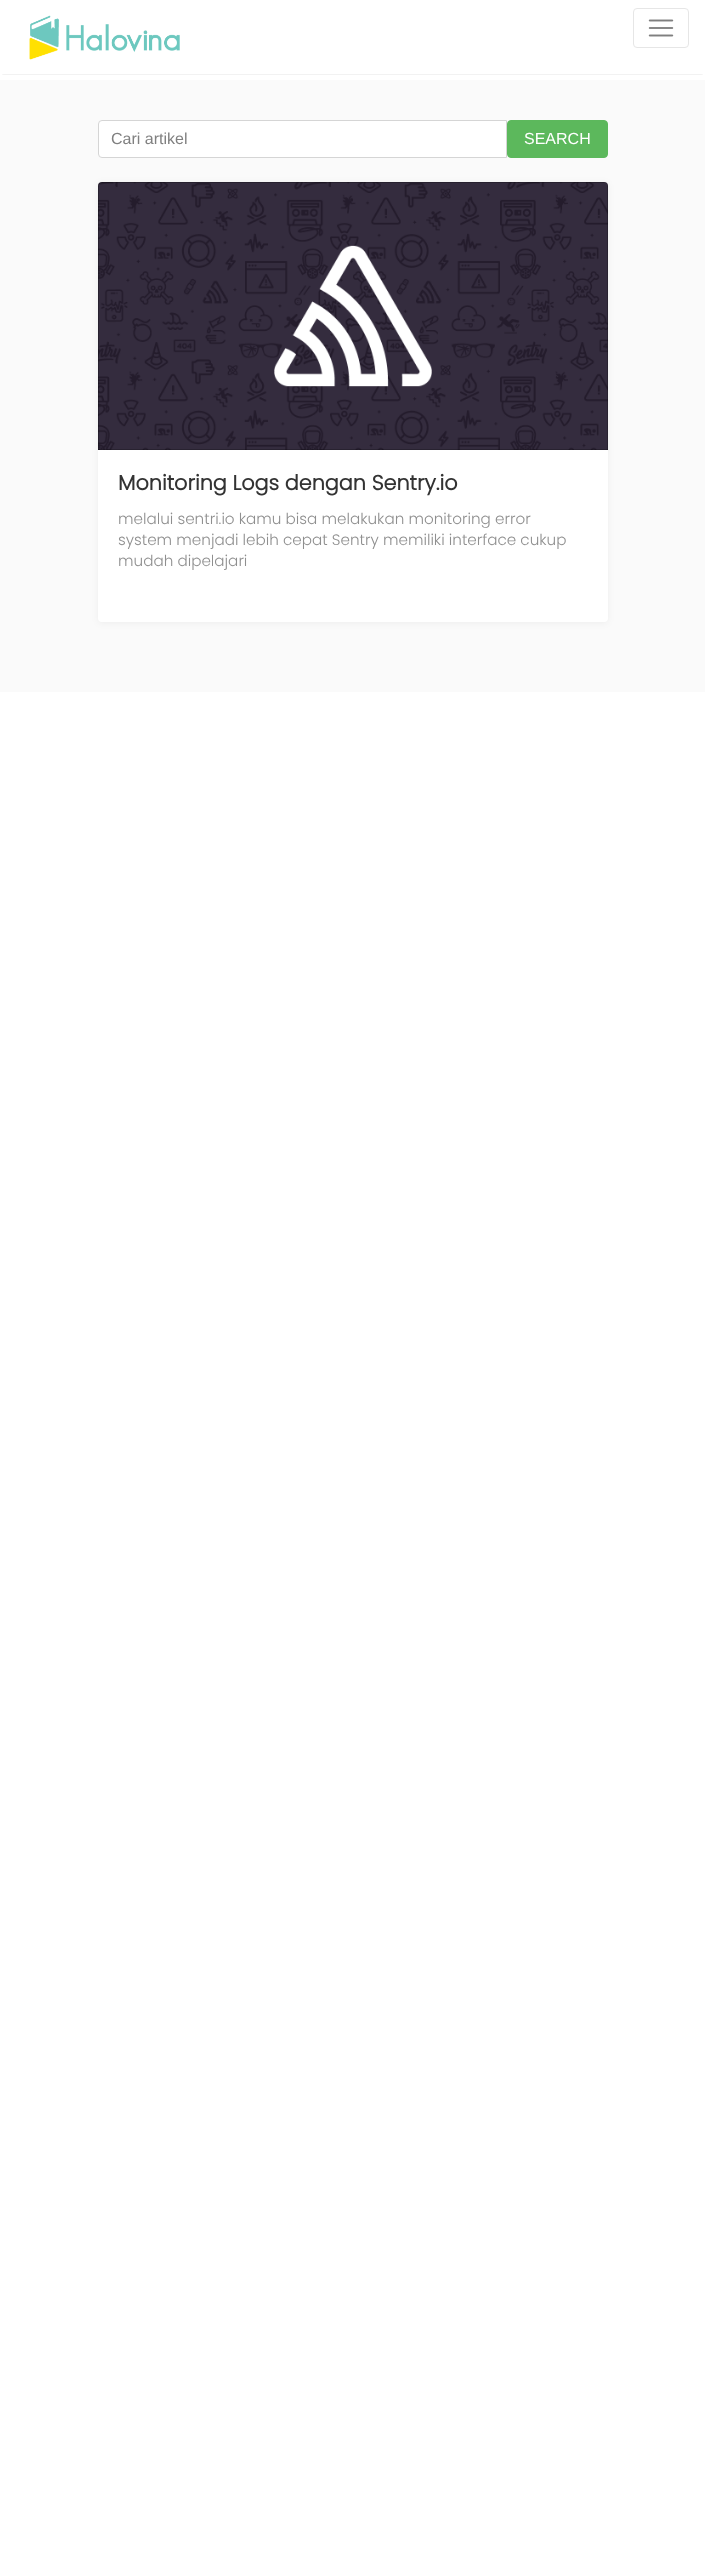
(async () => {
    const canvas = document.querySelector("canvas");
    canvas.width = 705;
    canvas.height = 2574;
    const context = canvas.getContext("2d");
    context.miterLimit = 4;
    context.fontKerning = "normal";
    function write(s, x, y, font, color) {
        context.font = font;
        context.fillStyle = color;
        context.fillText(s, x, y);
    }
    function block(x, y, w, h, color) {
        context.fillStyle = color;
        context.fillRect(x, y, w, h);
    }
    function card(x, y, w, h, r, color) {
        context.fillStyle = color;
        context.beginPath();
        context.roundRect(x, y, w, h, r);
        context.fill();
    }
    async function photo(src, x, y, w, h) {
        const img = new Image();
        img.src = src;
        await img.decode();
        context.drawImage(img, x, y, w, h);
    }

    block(0, 0, 705, 2574, "rgb(255, 255, 255)");
    context.save();
    context.beginPath();
    context.rect(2, 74, 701, 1);
    context.clip();
    context.fillStyle = "rgba(0, 0, 0, 0.15)";
    context.filter = "blur(1px)";
    context.beginPath();
    context.rect(2, 4, 701, 70);
    context.fill();
    context.filter = "none";
    context.restore();
    await photo("media/1.png", 29, 15, 151, 45);
    context.beginPath();
    context.roundRect(633.5, 8.5, 55, 39, 3.5);
    context.strokeStyle = "rgb(230, 230, 230)";
    context.stroke();
    await photo("media/2.png", 648, 19, 26, 18);
    block(0, 80, 705, 612, "rgb(250, 250, 250)");
    context.fillStyle = "rgb(255, 255, 255)";
    context.beginPath();
    context.roundRect(98.5, 120.5, 408, 37, [3.5, 0, 0, 3.5]);
    context.fill();
    context.strokeStyle = "rgb(213, 213, 213)";
    context.stroke();
    write("Cari artikel", 111, 144, "16px Liberation Sans", "rgb(128, 128, 128)");
    context.fillStyle = "rgb(92, 184, 92)";
    context.beginPath();
    context.roundRect(507.5, 120.5, 100, 37, 3.5);
    context.fill();
    context.strokeStyle = "rgb(92, 184, 92)";
    context.stroke();
    write("SEARCH", 524, 144, "16px Liberation Sans", "rgb(255, 255, 255)");
    context.fillStyle = "rgba(0, 0, 0, 0.05)";
    context.filter = "blur(3.5px)";
    context.beginPath();
    context.roundRect(98, 183, 510, 440, 4);
    context.fill();
    context.filter = "none";
    card(98, 182, 510, 440, 4, "rgb(255, 255, 255)");
    await photo("media/3.png", 98, 182, 510, 268);
    write("Monitoring Logs dengan Sentry.io", 118, 490, "bold 20.75px Poppins", "rgb(51, 51, 51)");
    write("melalui sentri.io kamu bisa melakukan monitoring error", 118, 524, "300 15.2px Poppins", "rgb(143, 143, 143)");
    write("system menjadi lebih cepat Sentry memiliki interface cukup", 118, 545, "300 15.2px Poppins", "rgb(143, 143, 143)");
    write("mudah dipelajari", 118, 566, "300 15.2px Poppins", "rgb(143, 143, 143)");
})();
